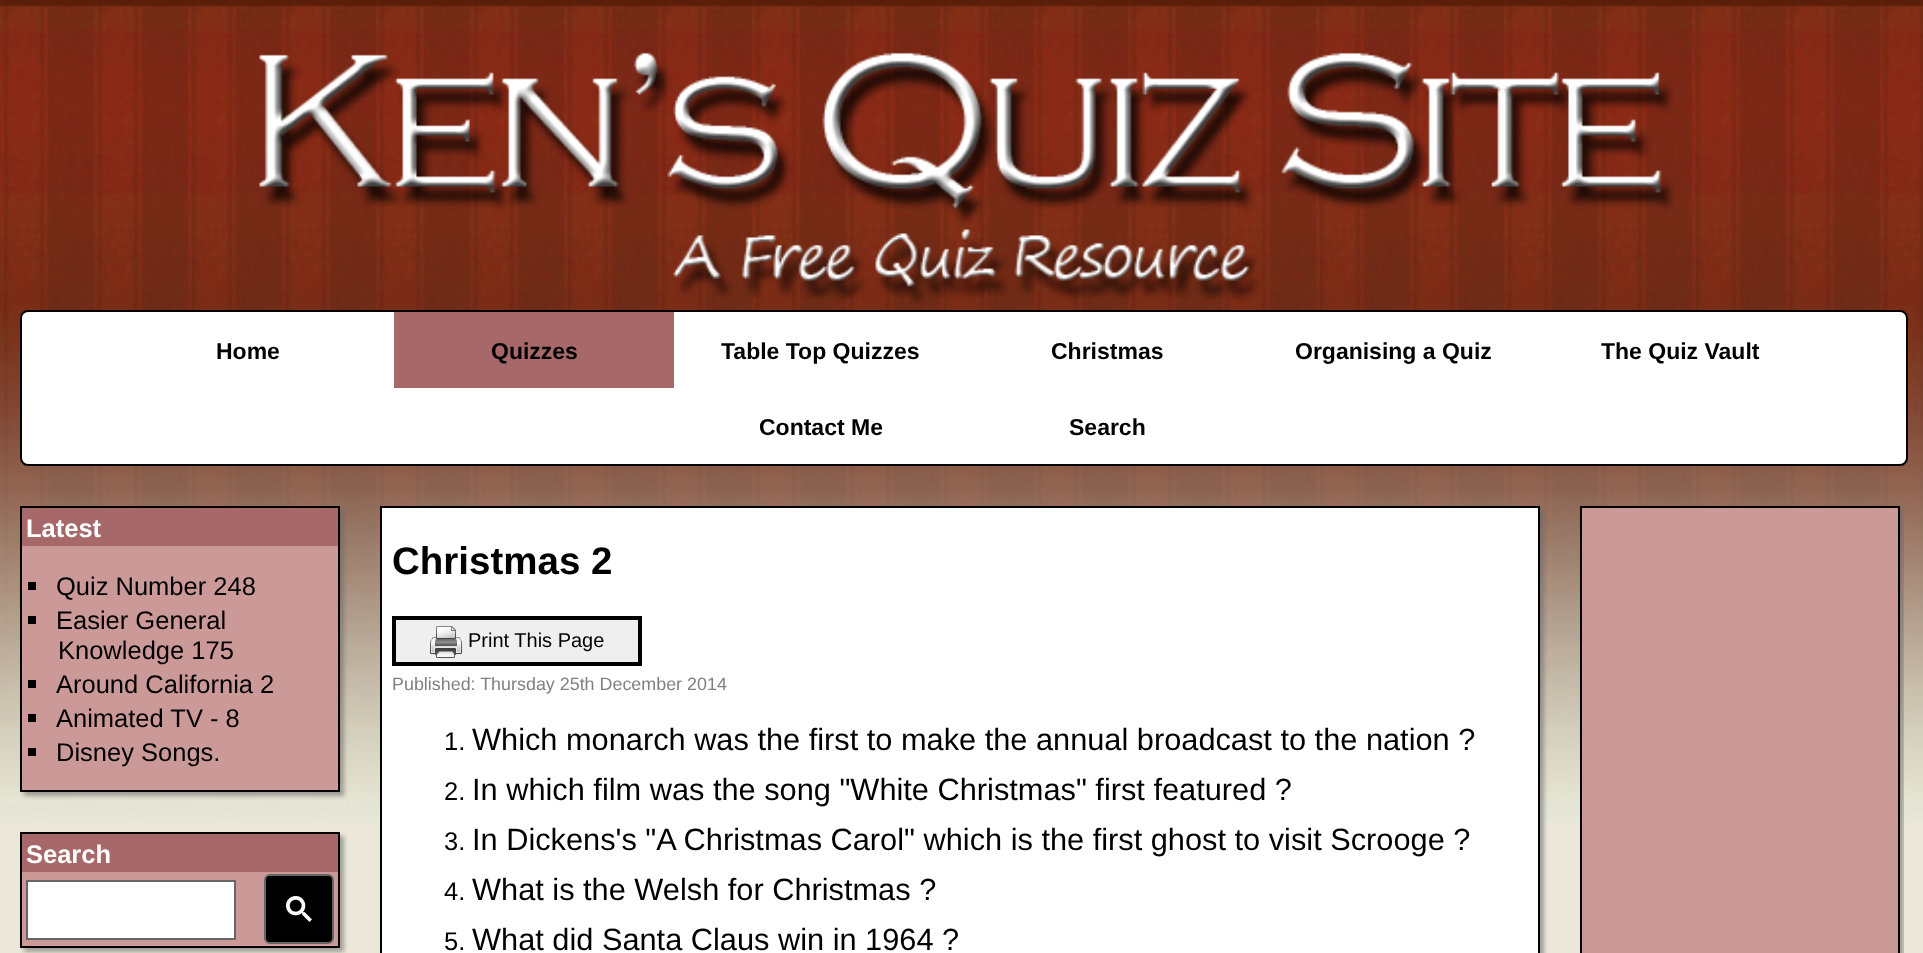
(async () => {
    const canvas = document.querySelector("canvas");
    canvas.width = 1923;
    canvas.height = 953;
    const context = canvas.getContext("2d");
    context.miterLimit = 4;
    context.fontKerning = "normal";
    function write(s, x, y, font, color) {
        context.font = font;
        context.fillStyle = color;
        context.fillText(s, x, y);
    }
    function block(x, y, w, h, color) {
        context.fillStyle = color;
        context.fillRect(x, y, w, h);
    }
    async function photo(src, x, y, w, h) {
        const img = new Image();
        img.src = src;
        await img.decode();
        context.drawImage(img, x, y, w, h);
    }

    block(0, 0, 1923, 953, "rgb(235, 232, 217)");
    await photo("media/1.png", 0, 0, 1923, 822);
    await photo("media/2.png", 259, 52, 1415, 252);
    context.fillStyle = "rgb(255, 255, 255)";
    context.beginPath();
    context.roundRect(21, 311, 1886, 154, 7);
    context.fill();
    context.strokeStyle = "rgb(0, 0, 0)";
    context.lineWidth = 2;
    context.stroke();
    write("Home", 216, 359, "bold 23px Liberation Sans", "rgb(0, 0, 0)");
    block(394, 312, 280, 76, "rgb(166, 104, 104)");
    write("Quizzes", 491, 359, "bold 23px Liberation Sans", "rgb(0, 0, 0)");
    write("Table Top Quizzes", 721, 359, "bold 23px Liberation Sans", "rgb(0, 0, 0)");
    write("Christmas", 1051, 359, "bold 23px Liberation Sans", "rgb(0, 0, 0)");
    write("Organising a Quiz", 1295, 359, "bold 23px Liberation Sans", "rgb(0, 0, 0)");
    write("The Quiz Vault", 1601, 359, "bold 23px Liberation Sans", "rgb(0, 0, 0)");
    write("Contact Me", 759, 435, "bold 23px Liberation Sans", "rgb(0, 0, 0)");
    write("Search", 1069, 435, "bold 23px Liberation Sans", "rgb(0, 0, 0)");
    context.fillStyle = "rgba(104, 104, 104, 0.56)";
    context.filter = "blur(2px)";
    context.beginPath();
    context.rect(24, 510, 320, 286);
    context.fill();
    context.filter = "none";
    block(22, 546, 316, 244, "rgb(204, 153, 153)");
    context.strokeRect(21, 507, 318, 284);
    block(22, 508, 316, 38, "rgb(166, 104, 104)");
    write("Latest", 26, 537, "bold 25.5px Liberation Sans", "rgb(255, 255, 255)");
    block(28, 582, 8, 8, "rgb(0, 0, 0)");
    write("Quiz Number 248", 56, 595, "25.5px Liberation Sans", "rgb(0, 0, 0)");
    block(28, 616, 8, 8, "rgb(0, 0, 0)");
    write("Easier General", 56, 629, "25.5px Liberation Sans", "rgb(0, 0, 0)");
    write("Knowledge 175", 58, 659, "25.5px Liberation Sans", "rgb(0, 0, 0)");
    block(28, 680, 8, 8, "rgb(0, 0, 0)");
    write("Around California 2", 56, 693, "25.5px Liberation Sans", "rgb(0, 0, 0)");
    block(28, 714, 8, 8, "rgb(0, 0, 0)");
    write("Animated TV - 8", 56, 727, "25.5px Liberation Sans", "rgb(0, 0, 0)");
    block(28, 748, 8, 8, "rgb(0, 0, 0)");
    write("Disney Songs.", 56, 761, "25.5px Liberation Sans", "rgb(0, 0, 0)");
    context.fillStyle = "rgba(104, 104, 104, 0.56)";
    context.filter = "blur(2px)";
    context.beginPath();
    context.rect(24, 836, 320, 116);
    context.fill();
    context.filter = "none";
    block(22, 872, 316, 74, "rgb(204, 153, 153)");
    context.strokeRect(21, 833, 318, 114);
    block(22, 834, 316, 38, "rgb(166, 104, 104)");
    write("Search", 26, 863, "bold 25.5px Liberation Sans", "rgb(255, 255, 255)");
    context.beginPath();
    context.rect(27, 881, 208, 58);
    context.fill();
    context.strokeStyle = "rgb(102, 102, 102)";
    context.stroke();
    context.fillStyle = "rgb(0, 0, 0)";
    context.beginPath();
    context.roundRect(265, 875, 68, 68, 5);
    context.fill();
    context.stroke();
    await photo("media/3.png", 286, 896, 26, 26);
    context.fillStyle = "rgba(104, 104, 104, 0.56)";
    context.filter = "blur(2px)";
    context.beginPath();
    context.rect(384, 510, 1160, 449);
    context.fill();
    context.filter = "none";
    context.fillStyle = "rgb(255, 255, 255)";
    context.beginPath();
    context.rect(381, 507, 1158, 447);
    context.fill();
    context.strokeStyle = "rgb(0, 0, 0)";
    context.stroke();
    write("Christmas 2", 392, 574, "bold 38.5px Liberation Sans", "rgb(0, 0, 0)");
    context.fillStyle = "rgb(239, 239, 239)";
    context.beginPath();
    context.rect(394, 618, 246, 46);
    context.fill();
    context.lineWidth = 4;
    context.stroke();
    await photo("media/4.png", 430, 626, 32, 32);
    write("Print This Page", 468, 647, "20px Liberation Sans", "rgb(0, 0, 0)");
    write("Published: Thursday 25th December 2014", 392, 690, "17.9px Liberation Sans", "rgb(128, 128, 128)");
    write("1.", 444, 750, "25.5px Liberation Sans", "rgb(0, 0, 0)");
    write("Which monarch was the first to make the annual broadcast to the nation ?", 472, 750, "30.75px Liberation Sans", "rgb(0, 0, 0)");
    write("2.", 444, 800, "25.5px Liberation Sans", "rgb(0, 0, 0)");
    write("In which film was the song \"White Christmas\" first featured ?", 472, 800, "30.75px Liberation Sans", "rgb(0, 0, 0)");
    write("3.", 444, 850, "25.5px Liberation Sans", "rgb(0, 0, 0)");
    write("In Dickens's \"A Christmas Carol\" which is the first ghost to visit Scrooge ?", 472, 850, "30.75px Liberation Sans", "rgb(0, 0, 0)");
    write("4.", 444, 900, "25.5px Liberation Sans", "rgb(0, 0, 0)");
    write("What is the Welsh for Christmas ?", 472, 900, "30.75px Liberation Sans", "rgb(0, 0, 0)");
    write("5.", 444, 950, "25.5px Liberation Sans", "rgb(0, 0, 0)");
    write("What did Santa Claus win in 1964 ?", 472, 950, "30.75px Liberation Sans", "rgb(0, 0, 0)");
    context.save();
    context.beginPath();
    context.rect(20, 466, 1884, 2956);
    context.clip();
    context.fillStyle = "rgba(104, 104, 104, 0.56)";
    context.filter = "blur(2px)";
    context.beginPath();
    context.rect(1584, 510, 320, 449);
    context.fill();
    context.filter = "none";
    context.restore();
    context.fillStyle = "rgb(204, 153, 153)";
    context.beginPath();
    context.rect(1581, 507, 318, 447);
    context.fill();
    context.lineWidth = 2;
    context.stroke();
})();
